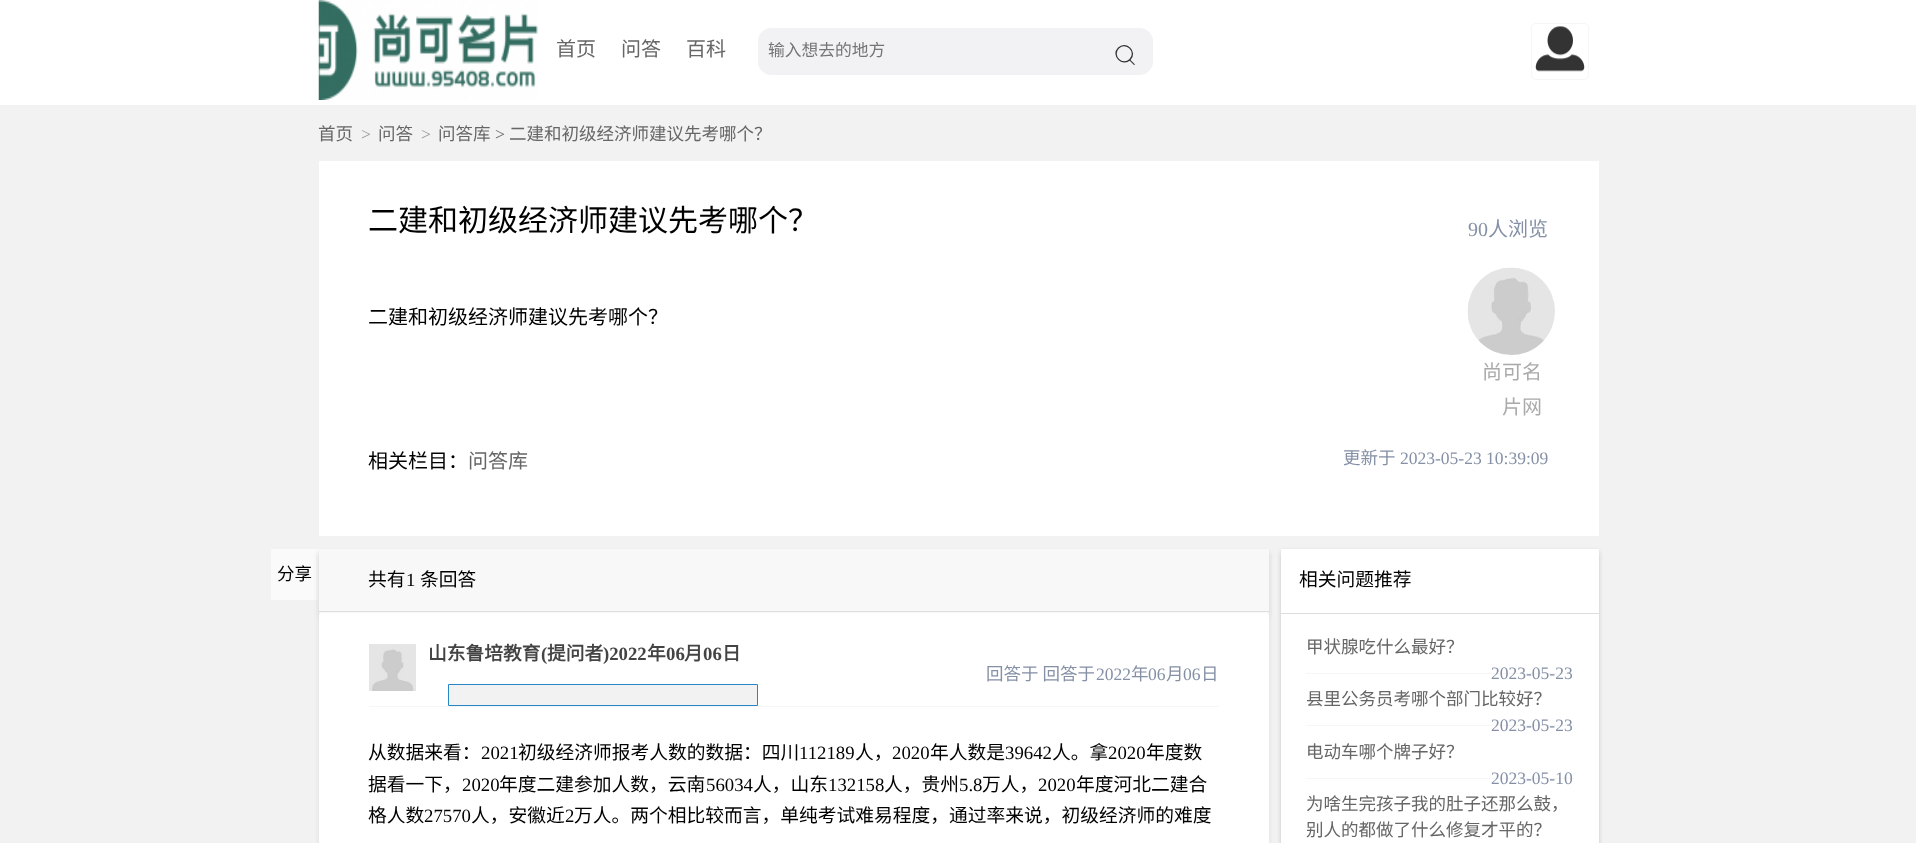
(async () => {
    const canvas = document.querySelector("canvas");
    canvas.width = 1916;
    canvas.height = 843;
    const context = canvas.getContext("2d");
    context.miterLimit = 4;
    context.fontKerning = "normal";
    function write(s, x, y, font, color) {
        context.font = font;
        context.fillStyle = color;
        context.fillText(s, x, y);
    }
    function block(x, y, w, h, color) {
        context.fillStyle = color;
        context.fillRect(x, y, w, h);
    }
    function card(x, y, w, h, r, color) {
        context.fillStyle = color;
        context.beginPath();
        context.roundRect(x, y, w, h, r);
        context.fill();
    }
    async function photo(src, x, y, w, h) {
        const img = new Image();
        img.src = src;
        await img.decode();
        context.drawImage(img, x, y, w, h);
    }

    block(0, 0, 1916, 843, "rgb(242, 242, 242)");
    block(0, 0, 1916, 105, "rgb(255, 255, 255)");
    await photo("media/1.png", 318, 0, 220, 100);
    write("首页", 556, 56, "20px Noto Sans CJK SC", "rgb(102, 102, 102)");
    write("问答", 621, 56, "20px Noto Sans CJK SC", "rgb(102, 102, 102)");
    write("百科", 686, 56, "20px Noto Sans CJK SC", "rgb(102, 102, 102)");
    context.fillStyle = "rgb(242, 242, 245)";
    context.beginPath();
    context.roundRect(758.5, 28.5, 394, 46, 12.5);
    context.fill();
    context.strokeStyle = "rgb(242, 242, 245)";
    context.stroke();
    write("输入想去的地方", 768, 56, "16.75px Noto Sans CJK SC", "rgb(117, 117, 117)");
    context.beginPath();
    context.moveTo(1118.5, 48);
    context.bezierCurveTo(1126, 40.5, 1137.5, 52, 1130, 59.5);
    context.bezierCurveTo(1122.5, 67, 1111, 55.5, 1118.5, 48);
    context.closePath();
    context.strokeStyle = "rgb(51, 51, 51)";
    context.lineWidth = 1.3;
    context.stroke();
    context.fillStyle = "rgb(51, 51, 51)";
    context.beginPath();
    context.moveTo(1129, 60);
    context.lineTo(1129.5, 59);
    context.lineTo(1135, 64.5);
    context.lineTo(1134, 65);
    context.closePath();
    context.fill();
    context.beginPath();
    context.roundRect(1531.5, 23.5, 57, 56, 4.5);
    context.strokeStyle = "rgb(246, 246, 246)";
    context.lineWidth = 1;
    context.stroke();
    await photo("media/2.png", 1535, 26, 50, 46);
    write("首页", 318, 140, "17.5px Noto Sans CJK SC", "rgb(102, 102, 102)");
    write(">", 361, 140, "17.5px Liberation Serif", "rgb(153, 153, 153)");
    write("问答", 378, 140, "17.5px Noto Sans CJK SC", "rgb(102, 102, 102)");
    write(">", 421, 140, "17.5px Liberation Serif", "rgb(153, 153, 153)");
    write("问答库", 438, 140, "17.5px Noto Sans CJK SC", "rgb(102, 102, 102)");
    write(">", 495, 140, "17.5px Liberation Serif", "rgb(102, 102, 102)");
    write("二建和初级经济师建议先考哪个？", 509, 140, "17.5px Noto Sans CJK SC", "rgb(102, 102, 102)");
    block(319, 161, 1280, 375, "rgb(255, 255, 255)");
    write("二建和初级经济师建议先考哪个？", 368, 231, "30px Noto Sans CJK SC", "rgb(0, 0, 0)");
    write("二建和初级经济师建议先考哪个？", 368, 324, "20px Noto Sans CJK SC", "rgb(0, 0, 0)");
    write("90", 1468, 236, "20px Liberation Serif", "rgb(133, 144, 166)");
    write("人浏览", 1488, 236, "20px Noto Sans CJK SC", "rgb(133, 144, 166)");
    await photo("media/3.png", 1467, 267, 88, 88);
    write("尚可名", 1482, 379, "20px Noto Sans CJK SC", "rgb(170, 170, 170)");
    write("片网", 1502, 414, "20px Noto Sans CJK SC", "rgb(170, 170, 170)");
    write("相关栏目：", 368, 468, "20px Noto Sans CJK SC", "rgb(0, 0, 0)");
    write("问答库", 468, 468, "20px Noto Sans CJK SC", "rgb(102, 102, 102)");
    write("更新于", 1343, 464, "17.5px Noto Sans CJK SC", "rgb(133, 144, 166)");
    write("2023-05-23 10:39:09", 1400, 464, "17.5px Liberation Serif", "rgb(133, 144, 166)");
    block(271, 549, 48, 51, "rgb(250, 250, 250)");
    write("分享", 277, 580, "17.5px Noto Sans CJK SC", "rgb(0, 0, 0)");
    context.fillStyle = "rgb(221, 221, 221)";
    context.filter = "blur(2.5px)";
    context.beginPath();
    context.rect(319, 553, 950, 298);
    context.fill();
    context.filter = "none";
    block(319, 613, 950, 3, "rgb(255, 255, 255)");
    context.fillStyle = "rgb(221, 221, 221)";
    context.filter = "blur(2.5px)";
    context.beginPath();
    context.rect(319, 553, 950, 63);
    context.fill();
    context.filter = "none";
    block(319, 549, 950, 64, "rgb(248, 248, 248)");
    block(319, 611, 950, 1, "rgb(221, 221, 221)");
    write("共有", 368, 586, "18.75px Noto Sans CJK SC", "rgb(0, 0, 0)");
    write("1", 406, 586, "18.75px Liberation Serif", "rgb(0, 0, 0)");
    write("条回答", 420, 586, "18.75px Noto Sans CJK SC", "rgb(0, 0, 0)");
    context.fillStyle = "rgb(255, 255, 255)";
    context.beginPath();
    context.moveTo(321.5, 613);
    context.lineTo(1266.5, 613);
    context.bezierCurveTo(1268, 613, 1269, 614, 1269, 615.5);
    context.lineTo(1269, 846);
    context.lineTo(319, 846);
    context.lineTo(319, 615.5);
    context.bezierCurveTo(319, 614, 320, 613, 321.5, 613);
    context.closePath();
    context.fill();
    block(369, 706, 850, 1, "rgb(246, 246, 246)");
    await photo("media/4.png", 369, 644, 47, 47);
    write("山东鲁培教育", 428, 660, "bold 18.75px Noto Sans CJK SC", "rgb(68, 68, 68)");
    write("(", 541, 660, "bold 18.75px Liberation Serif", "rgb(68, 68, 68)");
    write("提问者", 547, 660, "bold 18.75px Noto Sans CJK SC", "rgb(68, 68, 68)");
    write(")2022", 603, 660, "bold 18.75px Liberation Serif", "rgb(68, 68, 68)");
    write("年", 647, 660, "bold 18.75px Noto Sans CJK SC", "rgb(68, 68, 68)");
    write("06", 666, 660, "bold 18.75px Liberation Serif", "rgb(68, 68, 68)");
    write("月", 684, 660, "bold 18.75px Noto Sans CJK SC", "rgb(68, 68, 68)");
    write("06", 703, 660, "bold 18.75px Liberation Serif", "rgb(68, 68, 68)");
    write("日", 722, 660, "bold 18.75px Noto Sans CJK SC", "rgb(68, 68, 68)");
    context.fillStyle = "rgb(242, 242, 242)";
    context.beginPath();
    context.rect(448.5, 684.5, 309, 21);
    context.fill();
    context.strokeStyle = "rgb(39, 134, 198)";
    context.stroke();
    write("回答于 回答于", 986, 680, "17.5px Noto Sans CJK SC", "rgb(133, 144, 166)");
    write("2022", 1096, 680, "17.5px Liberation Serif", "rgb(133, 144, 166)");
    write("年", 1131, 680, "17.5px Noto Sans CJK SC", "rgb(133, 144, 166)");
    write("06", 1148, 680, "17.5px Liberation Serif", "rgb(133, 144, 166)");
    write("月", 1166, 680, "17.5px Noto Sans CJK SC", "rgb(133, 144, 166)");
    write("06", 1183, 680, "17.5px Liberation Serif", "rgb(133, 144, 166)");
    write("日", 1201, 680, "17.5px Noto Sans CJK SC", "rgb(133, 144, 166)");
    write("从数据来看：", 368, 759, "18.75px Noto Sans CJK SC", "rgb(0, 0, 0)");
    write("2021", 481, 759, "18.75px Liberation Serif", "rgb(0, 0, 0)");
    write("初级经济师报考人数的数据：四川", 518, 759, "18.75px Noto Sans CJK SC", "rgb(0, 0, 0)");
    write("112189", 799, 759, "18.75px Liberation Serif", "rgb(0, 0, 0)");
    write("人，", 855, 759, "18.75px Noto Sans CJK SC", "rgb(0, 0, 0)");
    write("2020", 892, 759, "18.75px Liberation Serif", "rgb(0, 0, 0)");
    write("年人数是", 930, 759, "18.75px Noto Sans CJK SC", "rgb(0, 0, 0)");
    write("39642", 1005, 759, "18.75px Liberation Serif", "rgb(0, 0, 0)");
    write("人。拿", 1052, 759, "18.75px Noto Sans CJK SC", "rgb(0, 0, 0)");
    write("2020", 1108, 759, "18.75px Liberation Serif", "rgb(0, 0, 0)");
    write("年度数", 1146, 759, "18.75px Noto Sans CJK SC", "rgb(0, 0, 0)");
    write("据看一下，", 368, 791, "18.75px Noto Sans CJK SC", "rgb(0, 0, 0)");
    write("2020", 462, 791, "18.75px Liberation Serif", "rgb(0, 0, 0)");
    write("年度二建参加人数，云南", 499, 791, "18.75px Noto Sans CJK SC", "rgb(0, 0, 0)");
    write("56034", 706, 791, "18.75px Liberation Serif", "rgb(0, 0, 0)");
    write("人，山东", 753, 791, "18.75px Noto Sans CJK SC", "rgb(0, 0, 0)");
    write("132158", 828, 791, "18.75px Liberation Serif", "rgb(0, 0, 0)");
    write("人，贵州", 884, 791, "18.75px Noto Sans CJK SC", "rgb(0, 0, 0)");
    write("5.8", 959, 791, "18.75px Liberation Serif", "rgb(0, 0, 0)");
    write("万人，", 982, 791, "18.75px Noto Sans CJK SC", "rgb(0, 0, 0)");
    write("2020", 1038, 791, "18.75px Liberation Serif", "rgb(0, 0, 0)");
    write("年度河北二建合", 1076, 791, "18.75px Noto Sans CJK SC", "rgb(0, 0, 0)");
    write("格人数", 368, 822, "18.75px Noto Sans CJK SC", "rgb(0, 0, 0)");
    write("27570", 424, 822, "18.75px Liberation Serif", "rgb(0, 0, 0)");
    write("人，安徽近", 471, 822, "18.75px Noto Sans CJK SC", "rgb(0, 0, 0)");
    write("2", 565, 822, "18.75px Liberation Serif", "rgb(0, 0, 0)");
    write("万人。两个相比较而言，单纯考试难易程度，通过率来说，初级经济师的难度", 574, 822, "18.75px Noto Sans CJK SC", "rgb(0, 0, 0)");
    context.fillStyle = "rgb(221, 221, 221)";
    context.filter = "blur(2.5px)";
    context.beginPath();
    context.rect(1281, 553, 318, 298);
    context.fill();
    context.filter = "none";
    block(1281, 549, 318, 3, "rgb(255, 255, 255)");
    context.fillStyle = "rgba(26, 26, 26, 0.1)";
    context.filter = "blur(2px)";
    context.beginPath();
    context.roundRect(1281, 550, 318, 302, 2.5);
    context.fill();
    context.filter = "none";
    card(1281, 549, 318, 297, 2.5, "rgb(255, 255, 255)");
    block(1281, 613, 318, 1, "rgb(221, 221, 221)");
    write("相关问题推荐", 1299, 586, "18.75px Noto Sans CJK SC", "rgb(0, 0, 0)");
    block(1306, 673, 268, 1, "rgb(246, 246, 246)");
    write("甲状腺吃什么最好？", 1306, 653, "17.5px Noto Sans CJK SC", "rgb(102, 102, 102)");
    write("2023-05-23", 1491, 679, "17.5px Liberation Serif", "rgb(133, 144, 166)");
    block(1306, 725, 268, 1, "rgb(246, 246, 246)");
    write("县里公务员考哪个部门比较好？", 1306, 705, "17.5px Noto Sans CJK SC", "rgb(102, 102, 102)");
    write("2023-05-23", 1491, 731, "17.5px Liberation Serif", "rgb(133, 144, 166)");
    block(1306, 778, 268, 1, "rgb(246, 246, 246)");
    write("电动车哪个牌子好？", 1306, 758, "17.5px Noto Sans CJK SC", "rgb(102, 102, 102)");
    write("2023-05-10", 1491, 784, "17.5px Liberation Serif", "rgb(133, 144, 166)");
    write("为啥生完孩子我的肚子还那么鼓，", 1306, 810, "17.5px Noto Sans CJK SC", "rgb(102, 102, 102)");
    write("别人的都做了什么修复才平的？", 1306, 836, "17.5px Noto Sans CJK SC", "rgb(102, 102, 102)");
})();
